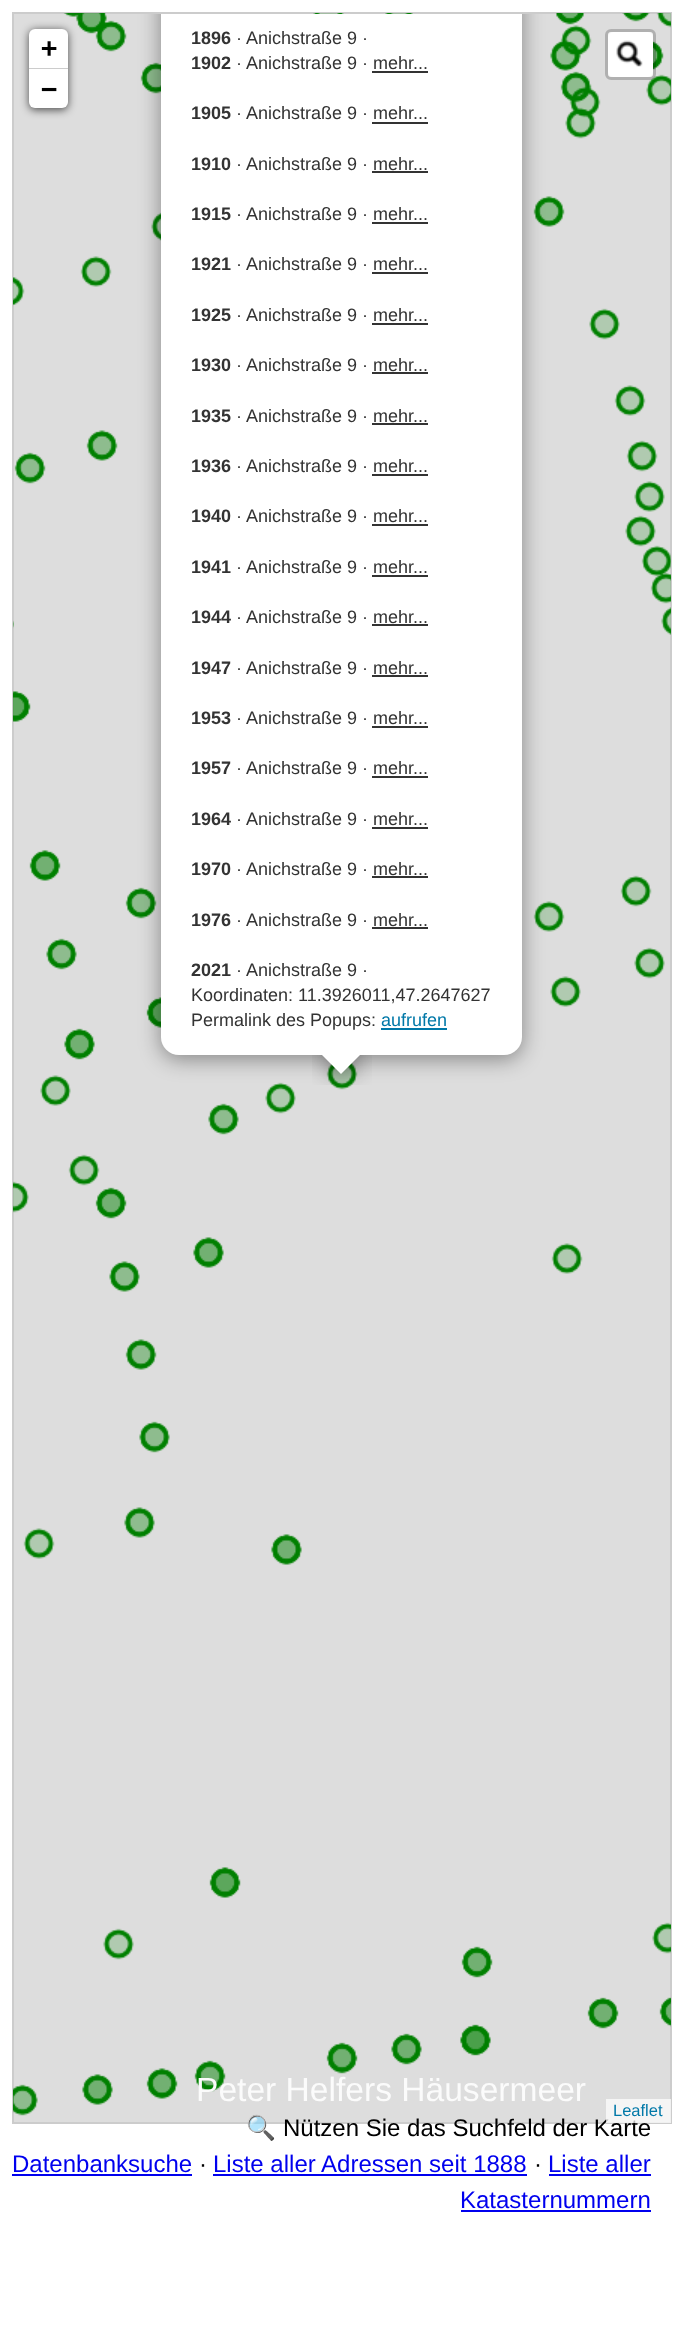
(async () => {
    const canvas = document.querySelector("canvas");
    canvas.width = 680;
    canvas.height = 2330;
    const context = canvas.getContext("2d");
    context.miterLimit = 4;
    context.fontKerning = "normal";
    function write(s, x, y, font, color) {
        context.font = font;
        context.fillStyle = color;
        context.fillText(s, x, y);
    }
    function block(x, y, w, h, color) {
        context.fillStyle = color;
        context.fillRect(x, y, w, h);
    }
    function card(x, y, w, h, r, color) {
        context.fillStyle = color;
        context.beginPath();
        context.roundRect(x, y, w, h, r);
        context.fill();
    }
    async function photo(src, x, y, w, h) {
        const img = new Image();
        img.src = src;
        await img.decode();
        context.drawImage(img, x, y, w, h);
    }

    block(0, 0, 680, 2330, "rgb(255, 255, 255)");
    context.fillStyle = "rgb(221, 221, 221)";
    context.beginPath();
    context.rect(13, 13, 658, 2110);
    context.fill();
    context.strokeStyle = "rgb(204, 204, 204)";
    context.lineWidth = 2;
    context.stroke();
    await photo("media/1.png", 13, 13, 658, 2103);
    context.save();
    context.beginPath();
    context.rect(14, 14, 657, 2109);
    context.clip();
    context.fillStyle = "rgba(0, 0, 0, 0.4)";
    context.filter = "blur(10.5px)";
    context.beginPath();
    context.roundRect(161, -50, 361, 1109, 18);
    context.fill();
    context.filter = "none";
    context.restore();
    context.fillStyle = "rgb(255, 255, 255)";
    context.beginPath();
    context.roundRect(161, 14, 361, 1041, [0, 0, 18, 18]);
    context.fill();
    write("1896", 191, 44, "bold 18px Liberation Sans", "rgb(51, 51, 51)");
    write("· Anichstraße 9 ·", 236, 44, "18px Liberation Sans", "rgb(51, 51, 51)");
    write("1902", 191, 69, "bold 18px Liberation Sans", "rgb(51, 51, 51)");
    write("· Anichstraße 9 · mehr...", 236, 69, "18px Liberation Sans", "rgb(51, 51, 51)");
    block(372, 71, 56, 2, "rgb(51, 51, 51)");
    write("1905", 191, 119, "bold 18px Liberation Sans", "rgb(51, 51, 51)");
    write("· Anichstraße 9 · mehr...", 236, 119, "18px Liberation Sans", "rgb(51, 51, 51)");
    block(372, 122, 56, 2, "rgb(51, 51, 51)");
    write("1910", 191, 170, "bold 18px Liberation Sans", "rgb(51, 51, 51)");
    write("· Anichstraße 9 · mehr...", 236, 170, "18px Liberation Sans", "rgb(51, 51, 51)");
    block(372, 171, 56, 2, "rgb(51, 51, 51)");
    write("1915", 191, 220, "bold 18px Liberation Sans", "rgb(51, 51, 51)");
    write("· Anichstraße 9 · mehr...", 236, 220, "18px Liberation Sans", "rgb(51, 51, 51)");
    block(372, 222, 56, 2, "rgb(51, 51, 51)");
    write("1921", 191, 270, "bold 18px Liberation Sans", "rgb(51, 51, 51)");
    write("· Anichstraße 9 · mehr...", 236, 270, "18px Liberation Sans", "rgb(51, 51, 51)");
    block(372, 272, 56, 2, "rgb(51, 51, 51)");
    write("1925", 191, 321, "bold 18px Liberation Sans", "rgb(51, 51, 51)");
    write("· Anichstraße 9 · mehr...", 236, 321, "18px Liberation Sans", "rgb(51, 51, 51)");
    block(372, 323, 56, 2, "rgb(51, 51, 51)");
    write("1930", 191, 371, "bold 18px Liberation Sans", "rgb(51, 51, 51)");
    write("· Anichstraße 9 · mehr...", 236, 371, "18px Liberation Sans", "rgb(51, 51, 51)");
    block(372, 372, 56, 2, "rgb(51, 51, 51)");
    write("1935", 191, 422, "bold 18px Liberation Sans", "rgb(51, 51, 51)");
    write("· Anichstraße 9 · mehr...", 236, 422, "18px Liberation Sans", "rgb(51, 51, 51)");
    block(372, 423, 56, 2, "rgb(51, 51, 51)");
    write("1936", 191, 472, "bold 18px Liberation Sans", "rgb(51, 51, 51)");
    write("· Anichstraße 9 · mehr...", 236, 472, "18px Liberation Sans", "rgb(51, 51, 51)");
    block(372, 474, 56, 2, "rgb(51, 51, 51)");
    write("1940", 191, 522, "bold 18px Liberation Sans", "rgb(51, 51, 51)");
    write("· Anichstraße 9 · mehr...", 236, 522, "18px Liberation Sans", "rgb(51, 51, 51)");
    block(372, 524, 56, 2, "rgb(51, 51, 51)");
    write("1941", 191, 573, "bold 18px Liberation Sans", "rgb(51, 51, 51)");
    write("· Anichstraße 9 · mehr...", 236, 573, "18px Liberation Sans", "rgb(51, 51, 51)");
    block(372, 575, 56, 2, "rgb(51, 51, 51)");
    write("1944", 191, 623, "bold 18px Liberation Sans", "rgb(51, 51, 51)");
    write("· Anichstraße 9 · mehr...", 236, 623, "18px Liberation Sans", "rgb(51, 51, 51)");
    block(372, 624, 56, 2, "rgb(51, 51, 51)");
    write("1947", 191, 674, "bold 18px Liberation Sans", "rgb(51, 51, 51)");
    write("· Anichstraße 9 · mehr...", 236, 674, "18px Liberation Sans", "rgb(51, 51, 51)");
    block(372, 675, 56, 2, "rgb(51, 51, 51)");
    write("1953", 191, 724, "bold 18px Liberation Sans", "rgb(51, 51, 51)");
    write("· Anichstraße 9 · mehr...", 236, 724, "18px Liberation Sans", "rgb(51, 51, 51)");
    block(372, 726, 56, 2, "rgb(51, 51, 51)");
    write("1957", 191, 774, "bold 18px Liberation Sans", "rgb(51, 51, 51)");
    write("· Anichstraße 9 · mehr...", 236, 774, "18px Liberation Sans", "rgb(51, 51, 51)");
    block(372, 776, 56, 2, "rgb(51, 51, 51)");
    write("1964", 191, 825, "bold 18px Liberation Sans", "rgb(51, 51, 51)");
    write("· Anichstraße 9 · mehr...", 236, 825, "18px Liberation Sans", "rgb(51, 51, 51)");
    block(372, 827, 56, 2, "rgb(51, 51, 51)");
    write("1970", 191, 875, "bold 18px Liberation Sans", "rgb(51, 51, 51)");
    write("· Anichstraße 9 · mehr...", 236, 875, "18px Liberation Sans", "rgb(51, 51, 51)");
    block(372, 876, 56, 2, "rgb(51, 51, 51)");
    write("1976", 191, 926, "bold 18px Liberation Sans", "rgb(51, 51, 51)");
    write("· Anichstraße 9 · mehr...", 236, 926, "18px Liberation Sans", "rgb(51, 51, 51)");
    block(372, 927, 56, 2, "rgb(51, 51, 51)");
    write("2021", 191, 976, "bold 18px Liberation Sans", "rgb(51, 51, 51)");
    write("· Anichstraße 9 ·", 236, 976, "18px Liberation Sans", "rgb(51, 51, 51)");
    write("Koordinaten: 11.3926011,47.2647627", 191, 1001, "18px Liberation Sans", "rgb(51, 51, 51)");
    write("Permalink des Popups:", 191, 1026, "18px Liberation Sans", "rgb(51, 51, 51)");
    write("aufrufen", 381, 1026, "18px Liberation Sans", "rgb(0, 120, 168)");
    block(381, 1028, 66, 2, "rgb(0, 120, 168)");
    context.save();
    context.beginPath();
    context.rect(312, 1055, 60, 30);
    context.clip();
    context.fillStyle = "rgba(0, 0, 0, 0.4)";
    context.filter = "blur(10.5px)";
    context.beginPath();
    context.rect(327, 1044, 29, 29);
    context.fill();
    context.filter = "none";
    context.restore();
    context.save();
    context.beginPath();
    context.rect(312, 1055, 60, 30);
    context.clip();
    context.fillStyle = "rgb(255, 255, 255)";
    context.beginPath();
    context.moveTo(341, 1034);
    context.lineTo(361, 1054);
    context.lineTo(341, 1074);
    context.lineTo(321, 1054);
    context.closePath();
    context.fill();
    context.restore();
    context.fillStyle = "rgba(0, 0, 0, 0.65)";
    context.filter = "blur(4px)";
    context.beginPath();
    context.roundRect(29, 30, 39, 80, 6);
    context.fill();
    context.filter = "none";
    context.fillStyle = "rgb(255, 255, 255)";
    context.beginPath();
    context.roundRect(29, 29, 39, 40, [6, 6, 0, 0]);
    context.fill();
    block(29, 68, 39, 1, "rgb(204, 204, 204)");
    write("+", 41, 57, "bold 27px DejaVu Sans Mono", "rgb(0, 0, 0)");
    context.fillStyle = "rgb(255, 255, 255)";
    context.beginPath();
    context.roundRect(29, 69, 39, 39, [0, 0, 6, 6]);
    context.fill();
    write("−", 41, 98, "bold 27px DejaVu Sans Mono", "rgb(0, 0, 0)");
    card(608, 32, 45, 45, 3, "rgba(255, 255, 255, 0.8)");
    context.beginPath();
    context.roundRect(606.5, 30.5, 48, 48, 4.5);
    context.strokeStyle = "rgba(0, 0, 0, 0.2)";
    context.lineWidth = 3;
    context.stroke();
    card(608, 32, 45, 45, 6, "rgb(255, 255, 255)");
    await photo("media/2.png", 616, 40, 27, 27);
    write("Nützen Sie das Suchfeld der Karte", 283, 2136, "24px Liberation Sans", "rgb(0, 0, 0)");
    block(606, 2099, 65, 24, "rgba(255, 255, 255, 0.7)");
    write("Leaflet", 613, 2116, "16.5px Liberation Sans", "rgb(0, 120, 168)");
    write("Peter Helfers Häusermeer", 196, 2101, "33.6px Liberation Sans", "rgb(251, 251, 251)");
    write("🔍", 246, 2136, "24px Noto Color Emoji", "rgb(0, 0, 0)");
    write("Datenbanksuche", 12, 2172, "24px Liberation Sans", "rgb(0, 0, 238)");
    block(12, 2174, 180, 2, "rgb(0, 0, 238)");
    write("·", 199, 2172, "24px Liberation Sans", "rgb(0, 0, 0)");
    write("Liste aller Adressen seit 1888", 213, 2172, "24px Liberation Sans", "rgb(0, 0, 238)");
    block(213, 2174, 314, 2, "rgb(0, 0, 238)");
    write("·", 534, 2172, "24px Liberation Sans", "rgb(0, 0, 0)");
    write("Liste aller", 548, 2172, "24px Liberation Sans", "rgb(0, 0, 238)");
    block(549, 2174, 102, 2, "rgb(0, 0, 238)");
    write("Katasternummern", 460, 2208, "24px Liberation Sans", "rgb(0, 0, 238)");
    block(461, 2210, 190, 2, "rgb(0, 0, 238)");
})();
